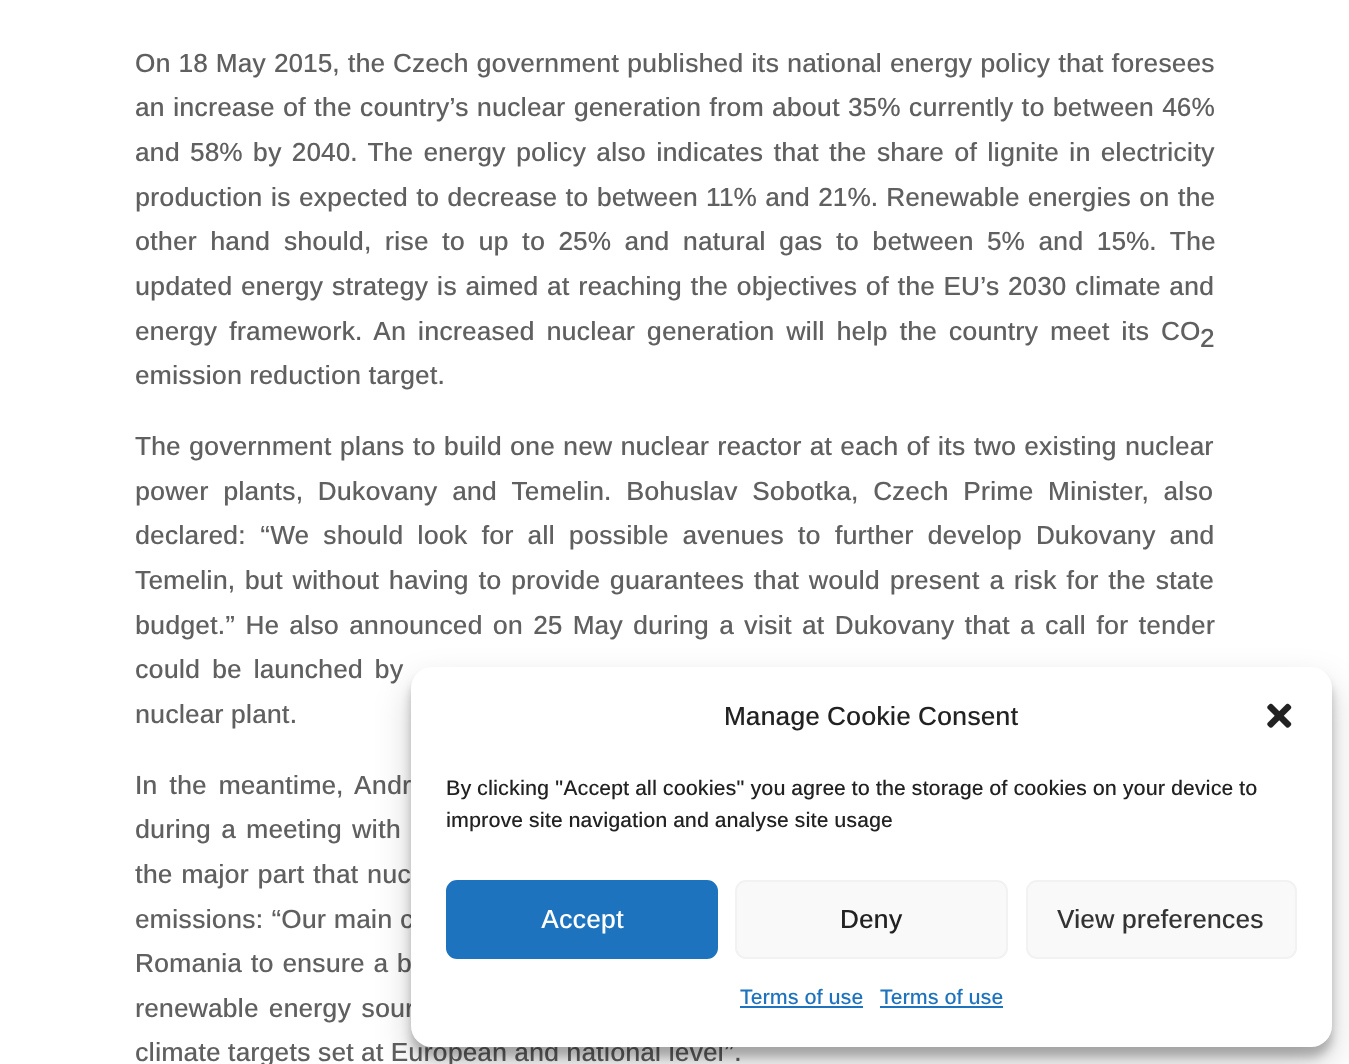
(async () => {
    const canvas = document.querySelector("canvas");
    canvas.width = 1349;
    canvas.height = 1064;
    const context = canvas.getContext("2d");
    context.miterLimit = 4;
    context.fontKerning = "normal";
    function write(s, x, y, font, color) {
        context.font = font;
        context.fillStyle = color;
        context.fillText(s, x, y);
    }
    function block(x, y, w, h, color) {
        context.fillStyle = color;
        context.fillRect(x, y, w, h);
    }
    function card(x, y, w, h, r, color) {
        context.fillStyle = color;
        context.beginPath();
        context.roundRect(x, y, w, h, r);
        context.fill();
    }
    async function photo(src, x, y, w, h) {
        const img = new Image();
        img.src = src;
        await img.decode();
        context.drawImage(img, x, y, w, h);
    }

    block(0, 0, 1349, 1064, "rgb(255, 255, 255)");
    context.wordSpacing = "0.75px";
    write("On 18 May 2015, the Czech government published its national energy policy that foresees", 135, 72, "500 26.25px Arimo", "rgb(96, 96, 96)");
    context.wordSpacing = "1px";
    write("an increase of the country’s nuclear generation from about 35% currently to between 46%", 135, 116, "500 26.25px Arimo", "rgb(96, 96, 96)");
    context.wordSpacing = "3px";
    write("and 58% by 2040. The energy policy also indicates that the share of lignite in electricity", 135, 161, "500 26.25px Arimo", "rgb(96, 96, 96)");
    context.wordSpacing = "1px";
    write("production is expected to decrease to between 11% and 21%. Renewable energies on the", 135, 206, "500 26.25px Arimo", "rgb(96, 96, 96)");
    context.wordSpacing = "6.25px";
    write("other hand should, rise to up to 25% and natural gas to between 5% and 15%. The", 135, 250, "500 26.25px Arimo", "rgb(96, 96, 96)");
    context.wordSpacing = "1.4px";
    write("updated energy strategy is aimed at reaching the objectives of the EU’s 2030 climate and", 135, 295, "500 26.25px Arimo", "rgb(96, 96, 96)");
    context.wordSpacing = "4.6px";
    write("energy framework. An increased nuclear generation will help the country meet its CO", 135, 340, "500 26.25px Arimo", "rgb(96, 96, 96)");
    context.wordSpacing = "0px";
    write("2", 1200, 347, "500 26.25px Arimo", "rgb(96, 96, 96)");
    write("emission reduction target.", 135, 384, "500 26.25px Arimo", "rgb(96, 96, 96)");
    context.wordSpacing = "1px";
    write("The government plans to build one new nuclear reactor at each of its two existing nuclear", 135, 455, "500 26.25px Arimo", "rgb(96, 96, 96)");
    context.wordSpacing = "7.5px";
    write("power plants, Dukovany and Temelin. Bohuslav Sobotka, Czech Prime Minister, also", 135, 500, "500 26.25px Arimo", "rgb(96, 96, 96)");
    context.wordSpacing = "6.75px";
    write("declared: “We should look for all possible avenues to further develop Dukovany and", 135, 544, "500 26.25px Arimo", "rgb(96, 96, 96)");
    context.wordSpacing = "2.5px";
    write("Temelin, but without having to provide guarantees that would present a risk for the state", 135, 589, "500 26.25px Arimo", "rgb(96, 96, 96)");
    context.wordSpacing = "3px";
    write("budget.” He also announced on 25 May during a visit at Dukovany that a call for tender", 135, 634, "500 26.25px Arimo", "rgb(96, 96, 96)");
    context.wordSpacing = "4.5px";
    write("could be launched by", 135, 678, "500 26.25px Arimo", "rgb(96, 96, 96)");
    context.wordSpacing = "0px";
    write("nuclear plant.", 135, 723, "500 26.25px Arimo", "rgb(96, 96, 96)");
    context.wordSpacing = "4.5px";
    write("In the meantime, Andr", 135, 794, "500 26.25px Arimo", "rgb(96, 96, 96)");
    context.wordSpacing = "3px";
    write("during a meeting with", 135, 838, "500 26.25px Arimo", "rgb(96, 96, 96)");
    context.wordSpacing = "1.5px";
    write("the major part that nuc", 135, 883, "500 26.25px Arimo", "rgb(96, 96, 96)");
    context.wordSpacing = "0.5px";
    write("emissions: “Our main c", 135, 928, "500 26.25px Arimo", "rgb(96, 96, 96)");
    context.wordSpacing = "1.5px";
    write("Romania to ensure a b", 135, 972, "500 26.25px Arimo", "rgb(96, 96, 96)");
    context.wordSpacing = "3px";
    write("renewable energy sour", 135, 1017, "500 26.25px Arimo", "rgb(96, 96, 96)");
    context.wordSpacing = "0px";
    write("climate targets set at European and national level”.", 135, 1061, "500 26.25px Arimo", "rgb(96, 96, 96)");
    context.fillStyle = "rgba(0, 0, 0, 0.23)";
    context.filter = "blur(5px)";
    context.beginPath();
    context.roundRect(411, 677, 921, 380, 21);
    context.fill();
    context.filter = "none";
    context.fillStyle = "rgba(0, 0, 0, 0.19)";
    context.filter = "blur(17.5px)";
    context.beginPath();
    context.roundRect(411, 684, 921, 380, 21);
    context.fill();
    context.filter = "none";
    card(411, 667, 921, 380, 21, "rgb(255, 255, 255)");
    write("Manage Cookie Consent", 724, 725, "500 26.25px Arimo", "rgb(34, 34, 34)");
    await photo("media/1.png", 1267, 703, 25, 25);
    write("By clicking \"Accept all cookies\" you agree to the storage of cookies on your device to", 446, 795, "500 21px Arimo", "rgb(34, 34, 34)");
    write("improve site navigation and analyse site usage", 446, 827, "500 21px Arimo", "rgb(34, 34, 34)");
    context.fillStyle = "rgb(30, 115, 190)";
    context.beginPath();
    context.roundRect(447, 881, 270, 77, 10);
    context.fill();
    context.strokeStyle = "rgb(30, 115, 190)";
    context.lineWidth = 2;
    context.stroke();
    write("Accept", 541, 928, "500 26.25px Arimo", "rgb(255, 255, 255)");
    context.fillStyle = "rgb(249, 249, 249)";
    context.beginPath();
    context.roundRect(736, 881, 271, 77, 10);
    context.fill();
    context.strokeStyle = "rgb(242, 242, 242)";
    context.stroke();
    write("Deny", 840, 928, "500 26.25px Arimo", "rgb(34, 34, 34)");
    context.fillStyle = "rgb(249, 249, 249)";
    context.beginPath();
    context.roundRect(1027, 881, 269, 77, 10);
    context.fill();
    context.stroke();
    write("View preferences", 1057, 928, "500 26.25px Arimo", "rgb(51, 51, 51)");
    write("Terms of use", 740, 1004, "500 21px Arimo", "rgb(30, 115, 190)");
    block(740, 1006, 123, 2, "rgb(30, 115, 190)");
    write("Terms of use", 880, 1004, "500 21px Arimo", "rgb(30, 115, 190)");
    block(880, 1006, 123, 2, "rgb(30, 115, 190)");
})();
